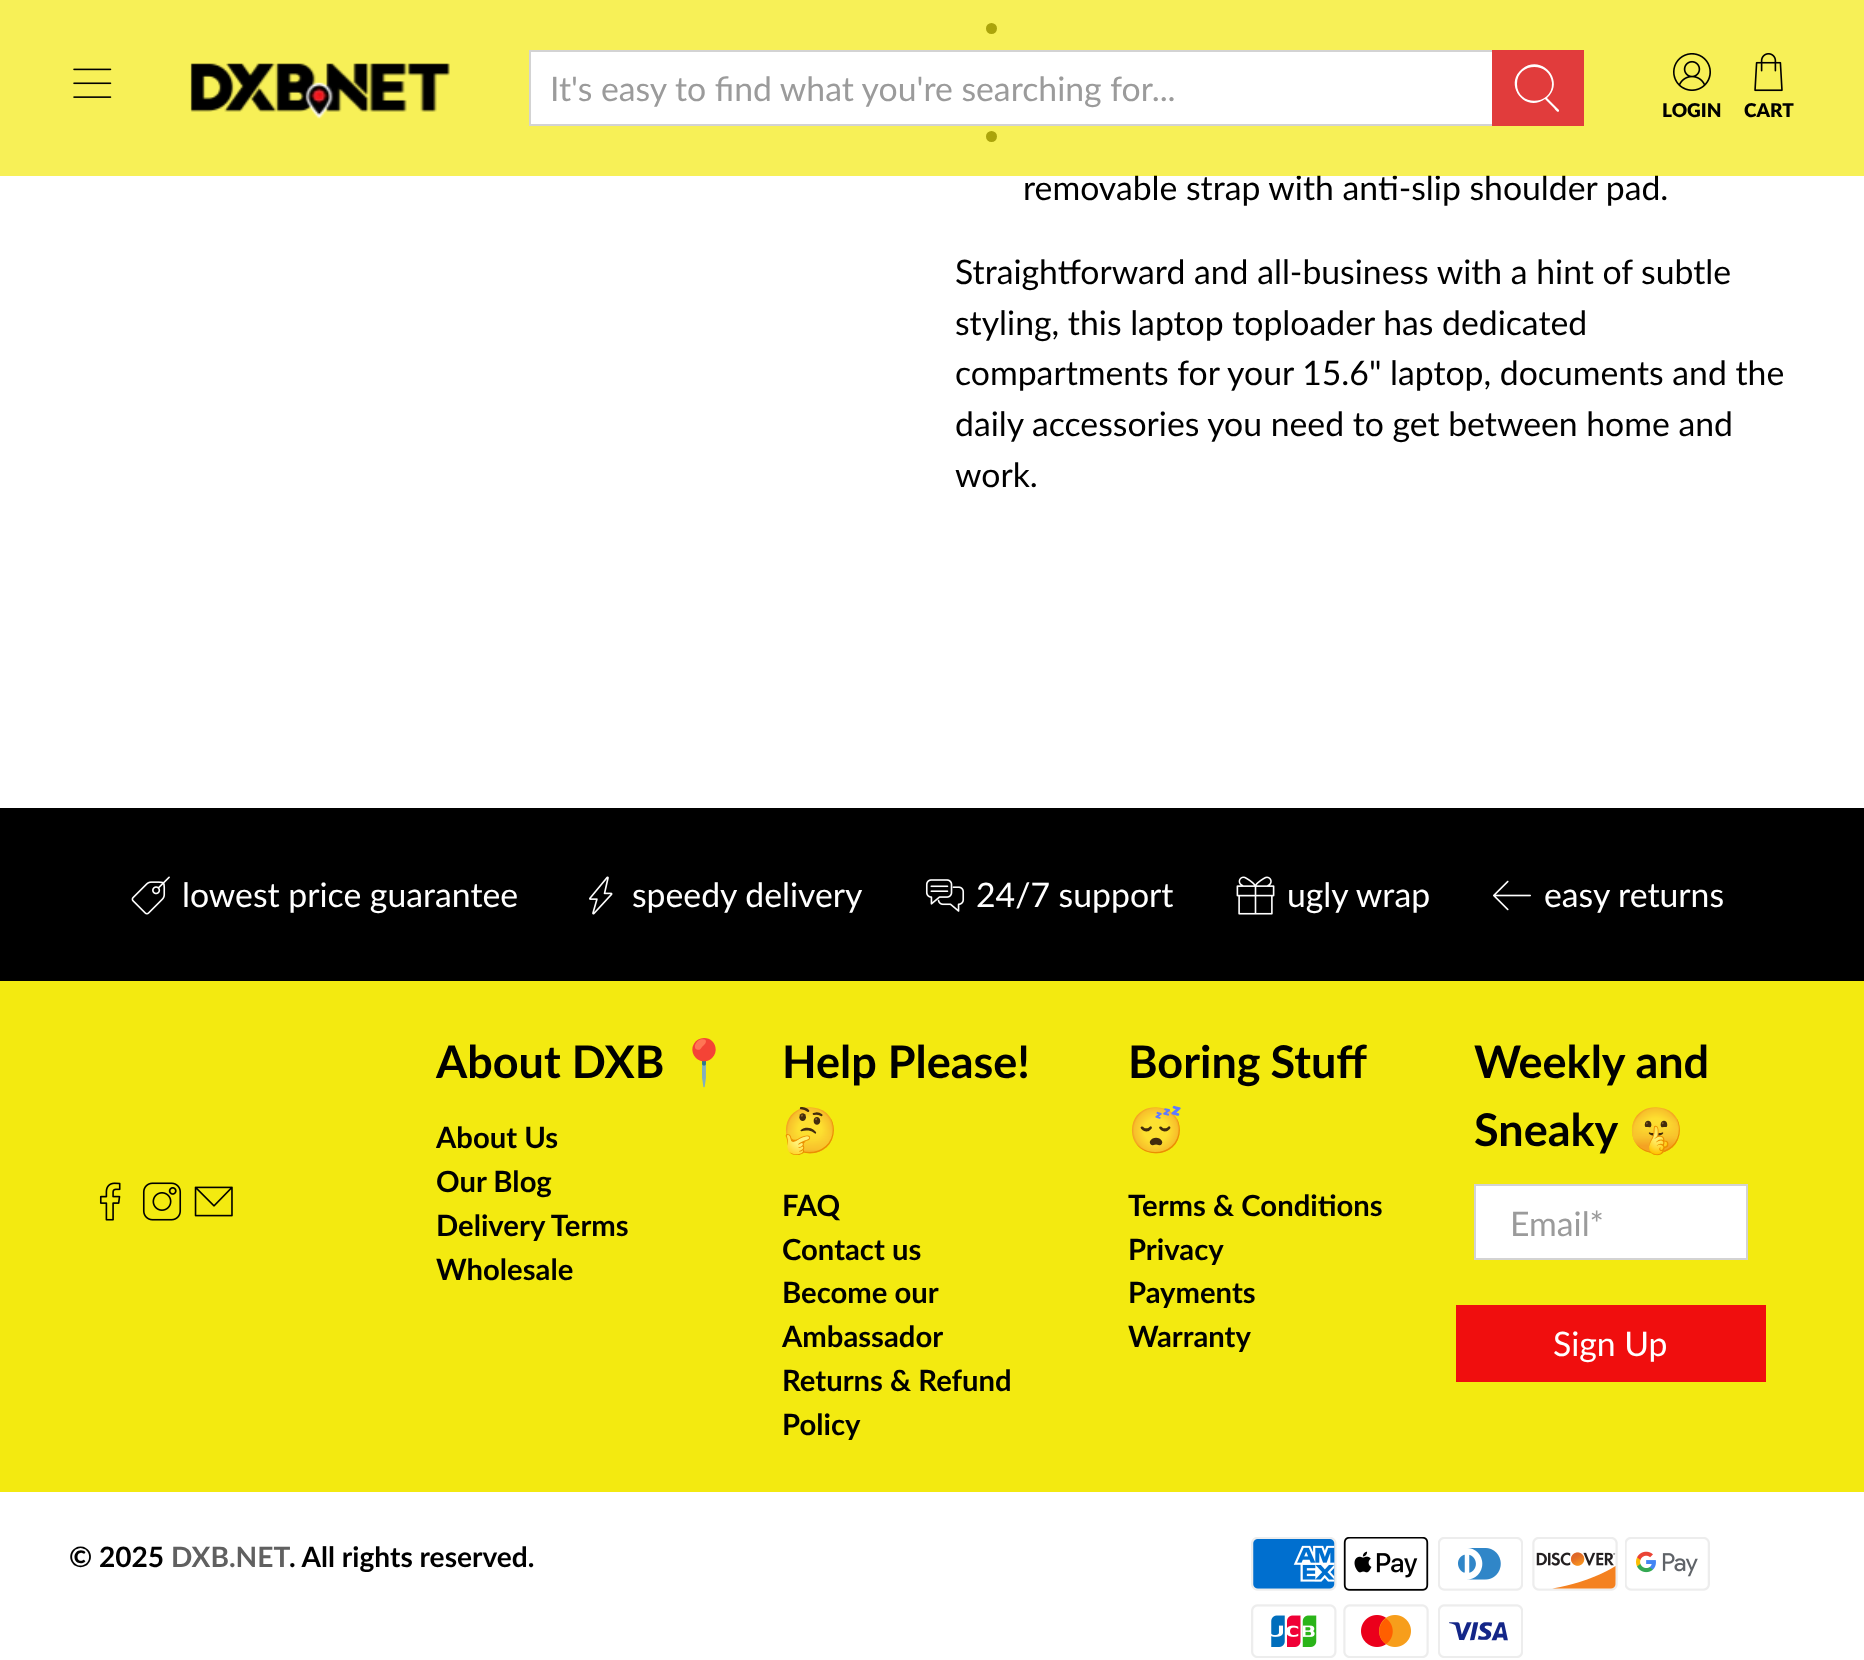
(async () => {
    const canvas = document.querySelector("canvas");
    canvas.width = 1864;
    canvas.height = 1660;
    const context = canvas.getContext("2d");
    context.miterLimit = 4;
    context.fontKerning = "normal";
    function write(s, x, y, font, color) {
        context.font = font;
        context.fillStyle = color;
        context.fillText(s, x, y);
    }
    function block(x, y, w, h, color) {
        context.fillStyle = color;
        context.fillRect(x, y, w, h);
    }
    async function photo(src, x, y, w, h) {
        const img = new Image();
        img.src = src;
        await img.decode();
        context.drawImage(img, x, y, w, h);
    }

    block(0, 0, 1864, 1660, "rgb(255, 255, 255)");
    context.fillStyle = "rgb(0, 0, 0)";
    context.beginPath();
    context.arc(991.5, 28.5, 5.5, 0, Math.PI * 2);
    context.fill();
    context.beginPath();
    context.arc(991.5, 136.5, 5.5, 0, Math.PI * 2);
    context.fill();
    write("removable strap with anti-slip shoulder pad.", 1023, 200, "33.75px Lato", "rgb(0, 0, 0)");
    block(0, 0, 1864, 176, "rgba(243, 234, 16, 0.7)");
    await photo("media/1.png", 73, 68, 39, 30);
    await photo("media/2.png", 190, 63, 260, 56);
    context.fillStyle = "rgb(255, 255, 255)";
    context.beginPath();
    context.rect(530, 51, 963, 74);
    context.fill();
    context.strokeStyle = "rgb(211, 211, 211)";
    context.lineWidth = 2;
    context.stroke();
    write("It's easy to find what you're searching for...", 550, 101, "33.75px Lato", "rgb(155, 155, 155)");
    block(1492, 50, 92, 76, "rgb(225, 60, 60)");
    context.fillStyle = "rgb(255, 255, 255)";
    context.beginPath();
    context.moveTo(1559, 110);
    context.lineTo(1547, 98);
    context.bezierCurveTo(1566, 82, 1542, 53, 1522, 69);
    context.bezierCurveTo(1503, 84, 1525, 114, 1545, 99);
    context.lineTo(1554, 108);
    context.bezierCurveTo(1554, 108, 1558, 114, 1559, 111);
    context.closePath();
    context.moveTo(1517, 84);
    context.bezierCurveTo(1517, 62, 1550, 61, 1552, 83);
    context.bezierCurveTo(1553, 106, 1517, 107, 1517, 84);
    context.closePath();
    context.fill();
    await photo("media/3.png", 1673, 53, 38, 38);
    write("LOGIN", 1662, 117, "800 19px Lato", "rgb(0, 0, 0)");
    await photo("media/4.png", 1754, 53, 29, 39);
    write("CART", 1744, 117, "800 19px Lato", "rgb(0, 0, 0)");
    write("Straightforward and all-business with a hint of subtle", 955, 284, "33.75px Lato", "rgb(0, 0, 0)");
    write("styling, this laptop toploader has dedicated", 955, 335, "33.75px Lato", "rgb(0, 0, 0)");
    write("compartments for your 15.6\" laptop, documents and the", 955, 385, "33.75px Lato", "rgb(0, 0, 0)");
    write("daily accessories you need to get between home and", 955, 436, "33.75px Lato", "rgb(0, 0, 0)");
    write("work.", 955, 487, "33.75px Lato", "rgb(0, 0, 0)");
    block(0, 808, 1864, 173, "rgb(0, 0, 0)");
    await photo("media/5.png", 131, 876, 39, 39);
    write("lowest price guarantee", 182, 907, "33.75px Lato", "rgb(255, 255, 255)");
    await photo("media/6.png", 589, 876, 24, 39);
    write("speedy delivery", 632, 907, "33.75px Lato", "rgb(255, 255, 255)");
    await photo("media/7.png", 925, 879, 40, 33);
    write("24/7 support", 976, 907, "33.75px Lato", "rgb(255, 255, 255)");
    await photo("media/8.png", 1236, 876, 39, 39);
    write("ugly wrap", 1287, 907, "33.75px Lato", "rgb(255, 255, 255)");
    await photo("media/9.png", 1493, 880, 38, 31);
    write("easy returns", 1544, 907, "33.75px Lato", "rgb(255, 255, 255)");
    block(0, 981, 1864, 511, "rgb(243, 234, 16)");
    await photo("media/10.png", 99, 1182, 22, 39);
    await photo("media/11.png", 142, 1182, 40, 39);
    await photo("media/12.png", 194, 1186, 39, 31);
    write("About DXB", 436, 1078, "bold 45px Lato", "rgb(0, 0, 0)");
    write("📍", 676, 1078, "bold 45px Noto Color Emoji", "rgb(0, 0, 0)");
    write("About Us", 436, 1148, "bold 29.25px Lato", "rgb(0, 0, 0)");
    write("Our Blog", 436, 1192, "bold 29.25px Lato", "rgb(0, 0, 0)");
    write("Delivery Terms", 436, 1236, "bold 29.25px Lato", "rgb(0, 0, 0)");
    write("Wholesale", 436, 1280, "bold 29.25px Lato", "rgb(0, 0, 0)");
    write("Help Please!", 782, 1078, "bold 45px Lato", "rgb(0, 0, 0)");
    write("🤔", 782, 1146, "bold 45px Noto Color Emoji", "rgb(0, 0, 0)");
    write("FAQ", 782, 1216, "bold 29.25px Lato", "rgb(0, 0, 0)");
    write("Contact us", 782, 1260, "bold 29.25px Lato", "rgb(0, 0, 0)");
    write("Become our", 782, 1303, "bold 29.25px Lato", "rgb(0, 0, 0)");
    write("Ambassador", 782, 1347, "bold 29.25px Lato", "rgb(0, 0, 0)");
    write("Returns & Refund", 782, 1391, "bold 29.25px Lato", "rgb(0, 0, 0)");
    write("Policy", 782, 1435, "bold 29.25px Lato", "rgb(0, 0, 0)");
    context.wordSpacing = "-1px";
    write("Boring Stuff", 1128, 1078, "bold 45px Lato", "rgb(0, 0, 0)");
    context.wordSpacing = "0px";
    write("😴", 1128, 1146, "bold 45px Noto Color Emoji", "rgb(0, 0, 0)");
    write("Terms & Conditions", 1128, 1216, "bold 29.25px Lato", "rgb(0, 0, 0)");
    write("Privacy", 1128, 1260, "bold 29.25px Lato", "rgb(0, 0, 0)");
    write("Payments", 1128, 1303, "bold 29.25px Lato", "rgb(0, 0, 0)");
    write("Warranty", 1128, 1347, "bold 29.25px Lato", "rgb(0, 0, 0)");
    write("Weekly and", 1474, 1078, "bold 45px Lato", "rgb(0, 0, 0)");
    write("Sneaky", 1474, 1146, "bold 45px Lato", "rgb(0, 0, 0)");
    write("🤫", 1628, 1146, "bold 45px Noto Color Emoji", "rgb(0, 0, 0)");
    context.fillStyle = "rgb(255, 255, 255)";
    context.beginPath();
    context.rect(1475, 1185, 272, 74);
    context.fill();
    context.stroke();
    write("Email*", 1510, 1236, "33.75px Lato", "rgb(155, 155, 155)");
    block(1456, 1305, 310, 77, "rgb(240, 14, 14)");
    write("Sign Up", 1553, 1356, "33.75px Lato", "rgb(255, 255, 255)");
    write("© 2025", 69, 1567, "bold 28.1px Lato", "rgb(0, 0, 0)");
    write("DXB.NET", 171, 1567, "bold 28.1px Lato", "rgb(96, 96, 96)");
    write(". All rights reserved.", 289, 1567, "bold 28.1px Lato", "rgb(0, 0, 0)");
    await photo("media/13.png", 1251, 1537, 86, 54);
    await photo("media/14.png", 1343, 1537, 86, 54);
    await photo("media/15.png", 1438, 1537, 85, 54);
    await photo("media/16.png", 1532, 1537, 86, 54);
    await photo("media/17.png", 1625, 1537, 85, 54);
    await photo("media/18.png", 1251, 1604, 86, 54);
    await photo("media/19.png", 1343, 1604, 86, 54);
    await photo("media/20.png", 1438, 1604, 85, 54);
})();
